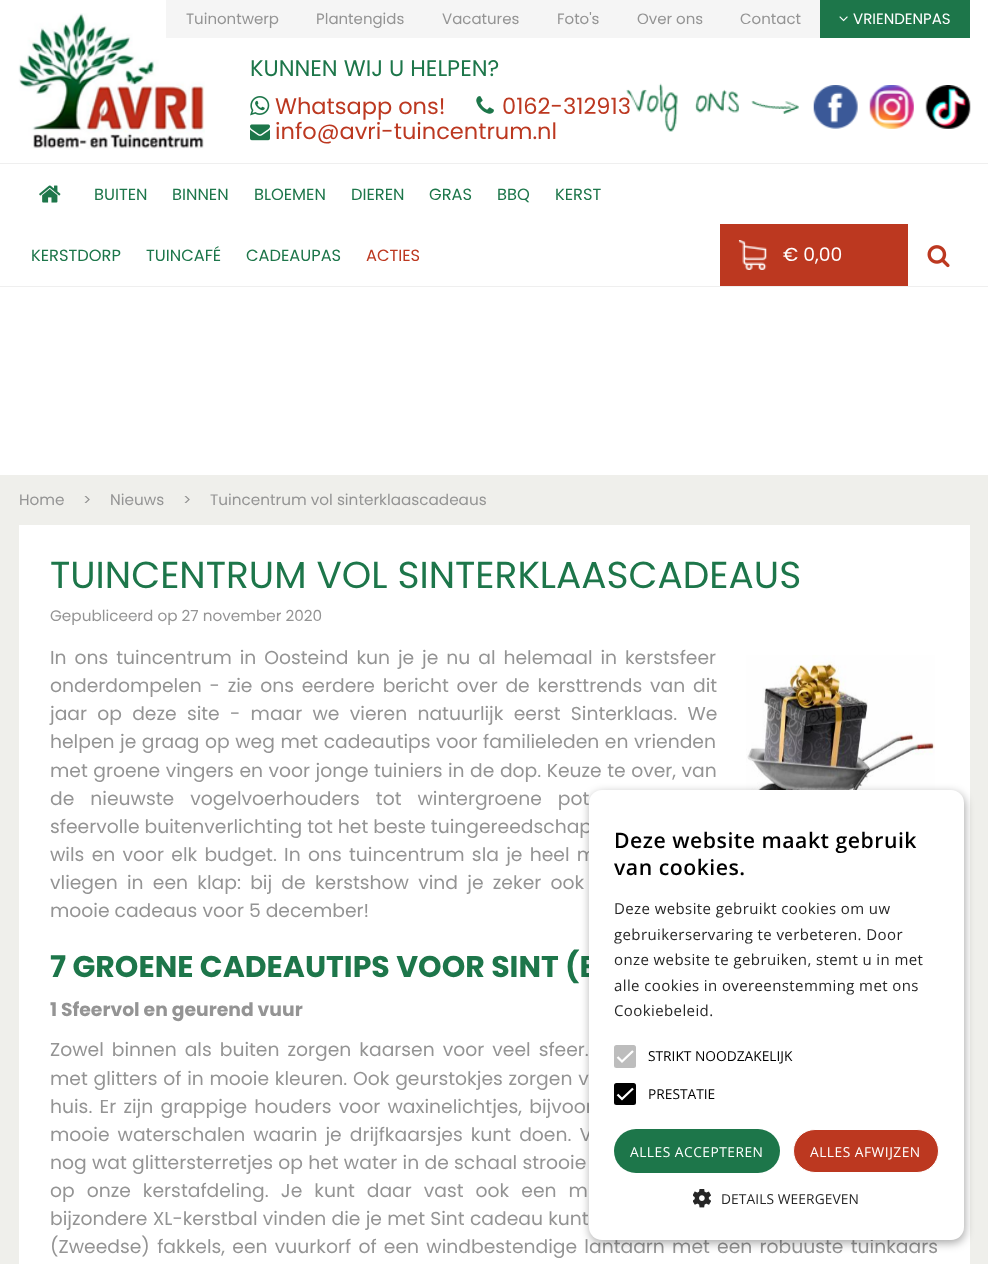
(async () => {
    const canvas = document.querySelector("canvas");
    canvas.width = 988;
    canvas.height = 1264;
    const context = canvas.getContext("2d");
    context.miterLimit = 4;
    context.fontKerning = "normal";
    function write(s, x, y, font, color) {
        context.font = font;
        context.fillStyle = color;
        context.fillText(s, x, y);
    }
    function block(x, y, w, h, color) {
        context.fillStyle = color;
        context.fillRect(x, y, w, h);
    }
    function card(x, y, w, h, r, color) {
        context.fillStyle = color;
        context.beginPath();
        context.roundRect(x, y, w, h, r);
        context.fill();
    }
    async function photo(src, x, y, w, h) {
        const img = new Image();
        img.src = src;
        await img.decode();
        context.drawImage(img, x, y, w, h);
    }

    block(0, 0, 988, 1264, "rgb(239, 239, 235)");
    block(0, 0, 988, 475, "rgb(255, 255, 255)");
    block(0, 286, 988, 1, "rgb(239, 239, 239)");
    await photo("media/1.png", 18, 13, 187, 136);
    block(166, 0, 654, 38, "rgb(245, 245, 245)");
    write("Tuinontwerp", 186, 24, "15px Poppins", "rgb(148, 148, 148)");
    write("Plantengids", 316, 24, "15px Poppins", "rgb(148, 148, 148)");
    write("Vacatures", 442, 24, "15px Poppins", "rgb(148, 148, 148)");
    write("Foto's", 557, 24, "15px Poppins", "rgb(148, 148, 148)");
    write("Over ons", 637, 24, "15px Poppins", "rgb(148, 148, 148)");
    write("Contact", 740, 24, "15px Poppins", "rgb(148, 148, 148)");
    block(820, 0, 150, 38, "rgb(29, 118, 74)");
    await photo("media/2.png", 839, 16, 9, 6);
    write("VRIENDENPAS", 853, 24, "15px Poppins", "rgb(255, 255, 255)");
    write("KUNNEN WIJ U HELPEN?", 250, 76, "22.5px Poppins", "rgb(29, 118, 74)");
    await photo("media/3.png", 250, 96, 20, 20);
    write("Whatsapp ons!", 275, 114, "22.5px Poppins", "rgb(188, 56, 32)");
    await photo("media/4.png", 476, 96, 18, 18);
    write("0162-312913", 502, 114, "22.5px Poppins", "rgb(188, 56, 32)");
    await photo("media/5.png", 250, 124, 20, 17);
    write("info@avri-tuincentrum.nl", 275, 139, "22.5px Poppins", "rgb(188, 56, 32)");
    await photo("media/6.png", 626, 83, 173, 49);
    await photo("media/7.png", 813, 85, 45, 44);
    await photo("media/8.png", 869, 85, 45, 44);
    await photo("media/9.png", 925, 85, 46, 44);
    block(0, 163, 988, 1, "rgb(239, 239, 239)");
    await photo("media/10.png", 39, 185, 22, 18);
    write("BUITEN", 94, 200, "16.25px Poppins", "rgb(29, 118, 74)");
    write("BINNEN", 172, 200, "16.25px Poppins", "rgb(29, 118, 74)");
    write("BLOEMEN", 254, 200, "16.25px Poppins", "rgb(29, 118, 74)");
    write("DIEREN", 351, 200, "16.25px Poppins", "rgb(29, 118, 74)");
    write("GRAS", 429, 200, "16.25px Poppins", "rgb(29, 118, 74)");
    write("BBQ", 497, 200, "16.25px Poppins", "rgb(29, 118, 74)");
    write("KERST", 555, 200, "16.25px Poppins", "rgb(29, 118, 74)");
    write("KERSTDORP", 31, 261, "16.25px Poppins", "rgb(29, 118, 74)");
    write("TUINCAFÉ", 146, 261, "16.25px Poppins", "rgb(29, 118, 74)");
    write("CADEAUPAS", 246, 261, "16.25px Poppins", "rgb(29, 118, 74)");
    write("ACTIES", 366, 261, "16.25px Poppins", "rgb(188, 56, 32)");
    block(720, 224, 188, 62, "rgb(188, 56, 32)");
    await photo("media/11.png", 738, 240, 29, 30);
    write("€ 0,00", 783, 261, "18.75px Poppins", "rgb(255, 255, 255)");
    await photo("media/12.png", 927, 245, 23, 23);
    block(19, 525, 951, 739, "rgb(255, 255, 255)");
    write("TUINCENTRUM VOL SINTERKLAASCADEAUS", 50, 588, "37.5px Poppins", "rgb(29, 118, 74)");
    write("Gepubliceerd op 27 november 2020", 50, 621, "15.25px Poppins", "rgb(148, 148, 148)");
    context.wordSpacing = "2.9px";
    write("In ons tuincentrum in Oosteind kun je je nu al helemaal in kerstsfeer", 50, 664, "18.75px Poppins", "rgb(148, 148, 148)");
    context.wordSpacing = "2.75px";
    write("onderdompelen - zie ons eerdere bericht over de kersttrends van dit", 50, 692, "18.75px Poppins", "rgb(148, 148, 148)");
    context.wordSpacing = "5.25px";
    write("jaar op deze site - maar we vieren natuurlijk eerst Sinterklaas. We", 50, 720, "18.75px Poppins", "rgb(148, 148, 148)");
    context.wordSpacing = "0.5px";
    write("helpen je graag op weg met cadeautips voor familieleden en vrienden", 50, 748, "18.75px Poppins", "rgb(148, 148, 148)");
    write("met groene vingers en voor jonge tuiniers in de dop. Keuze te over, van", 50, 777, "18.75px Poppins", "rgb(148, 148, 148)");
    context.wordSpacing = "11px";
    write("de nieuwste vogelvoerhouders tot wintergroene pot", 50, 805, "18.75px Poppins", "rgb(148, 148, 148)");
    context.wordSpacing = "0px";
    write("sfeervolle buitenverlichting tot het beste tuingereedschap", 50, 833, "18.75px Poppins", "rgb(148, 148, 148)");
    context.wordSpacing = "2.25px";
    write("wils en voor elk budget. In ons tuincentrum sla je heel m", 50, 861, "18.75px Poppins", "rgb(148, 148, 148)");
    context.wordSpacing = "4.25px";
    write("vliegen in een klap: bij de kerstshow vind je zeker ook", 50, 889, "18.75px Poppins", "rgb(148, 148, 148)");
    context.wordSpacing = "0px";
    write("mooie cadeaus voor 5 december!", 50, 917, "18.75px Poppins", "rgb(148, 148, 148)");
    await photo("media/13.png", 746, 655, 189, 135);
    write("7 GROENE CADEAUTIPS VOOR SINT (E", 50, 977, "bold 30px Poppins", "rgb(29, 118, 74)");
    write("1 Sfeervol en geurend vuur", 50, 1016, "bold 18.75px Poppins", "rgb(148, 148, 148)");
    context.wordSpacing = "3px";
    write("Zowel binnen als buiten zorgen kaarsen voor veel sfeer.", 50, 1056, "18.75px Poppins", "rgb(148, 148, 148)");
    context.wordSpacing = "0.75px";
    write("met glitters of in mooie kleuren. Ook geurstokjes zorgen v", 50, 1085, "18.75px Poppins", "rgb(148, 148, 148)");
    context.wordSpacing = "2.25px";
    write("huis. Er zijn grappige houders voor waxinelichtjes, bijvoor", 50, 1113, "18.75px Poppins", "rgb(148, 148, 148)");
    context.wordSpacing = "3px";
    write("mooie waterschalen waarin je drijfkaarsjes kunt doen. V", 50, 1141, "18.75px Poppins", "rgb(148, 148, 148)");
    context.wordSpacing = "0.25px";
    write("nog wat glittersterretjes op het water in de schaal strooie", 50, 1169, "18.75px Poppins", "rgb(148, 148, 148)");
    context.wordSpacing = "7px";
    write("op onze kerstafdeling. Je kunt daar vast ook een m", 50, 1197, "18.75px Poppins", "rgb(148, 148, 148)");
    context.wordSpacing = "0.25px";
    write("bijzondere XL-kerstbal vinden die je met Sint cadeau kunt", 50, 1225, "18.75px Poppins", "rgb(148, 148, 148)");
    context.wordSpacing = "2.25px";
    write("(Zweedse) fakkels, een vuurkorf of een windbestendige lantaarn met een robuuste tuinkaars", 50, 1253, "18.75px Poppins", "rgb(148, 148, 148)");
    context.wordSpacing = "0px";
    write("Home", 19, 505, "15.25px Poppins", "rgb(148, 148, 148)");
    write(">", 83, 505, "15.25px Poppins", "rgb(148, 148, 148)");
    write("Nieuws", 110, 505, "15.25px Poppins", "rgb(148, 148, 148)");
    write(">", 183, 505, "15.25px Poppins", "rgb(148, 148, 148)");
    write("Tuincentrum vol sinterklaascadeaus", 210, 505, "15.25px Poppins", "rgb(148, 148, 148)");
    context.fillStyle = "rgba(0, 0, 0, 0.35)";
    context.filter = "blur(5px)";
    context.beginPath();
    context.roundRect(590, 793, 375, 450, 13);
    context.fill();
    context.filter = "none";
    card(589, 790, 375, 450, 13, "rgb(255, 255, 255)");
    context.letterSpacing = "0.5px";
    write("Deze website maakt gebruik", 614, 848, "600 21.25px Open Sans", "rgb(0, 0, 0)");
    write("van cookies.", 614, 875, "600 21.25px Open Sans", "rgb(0, 0, 0)");
    context.letterSpacing = "0.4px";
    write("Deze website gebruikt cookies om uw", 614, 914, "15px Open Sans", "rgb(38, 38, 38)");
    write("gebruikerservaring te verbeteren. Door", 614, 940, "15px Open Sans", "rgb(38, 38, 38)");
    write("onze website te gebruiken, stemt u in met", 614, 965, "15px Open Sans", "rgb(38, 38, 38)");
    write("alle cookies in overeenstemming met ons", 614, 991, "15px Open Sans", "rgb(38, 38, 38)");
    write("Cookiebeleid.", 614, 1016, "15px Open Sans", "rgb(38, 38, 38)");
    card(614, 1045, 22, 23, 2.5, "rgb(189, 189, 189)");
    context.beginPath();
    context.moveTo(617.5, 1057);
    context.lineTo(622, 1061.5);
    context.lineTo(633, 1051);
    context.strokeStyle = "rgb(255, 255, 255)";
    context.lineWidth = 2.3;
    context.stroke();
    context.letterSpacing = "0px";
    write("STRIKT NOODZAKELIJK", 648, 1061, "13.75px Open Sans", "rgb(0, 0, 0)");
    context.beginPath();
    context.roundRect(615.5, 1084.5, 19, 19, 1);
    context.fill();
    context.strokeStyle = "rgb(0, 0, 0)";
    context.lineWidth = 3;
    context.stroke();
    context.beginPath();
    context.moveTo(617.5, 1094.5);
    context.lineTo(622, 1099);
    context.lineTo(633, 1088.5);
    context.strokeStyle = "rgb(255, 255, 255)";
    context.lineWidth = 2.3;
    context.stroke();
    write("PRESTATIE", 648, 1099, "13.75px Open Sans", "rgb(0, 0, 0)");
    card(614, 1129, 166, 44, 22, "rgb(29, 118, 74)");
    context.letterSpacing = "0.5px";
    write("ALLES ACCEPTEREN", 630, 1157, "13.75px Open Sans", "rgb(255, 255, 255)");
    context.fillStyle = "rgb(188, 56, 32)";
    context.beginPath();
    context.roundRect(793.5, 1129.5, 145, 43, 21.5);
    context.fill();
    context.lineWidth = 1;
    context.stroke();
    write("ALLES AFWIJZEN", 810, 1157, "13.75px Open Sans", "rgb(255, 255, 255)");
    await photo("media/14.png", 693, 1189, 18, 19);
    context.letterSpacing = "0.1px";
    write("DETAILS WEERGEVEN", 721, 1204, "13.75px Open Sans", "rgb(38, 38, 38)");
})();
